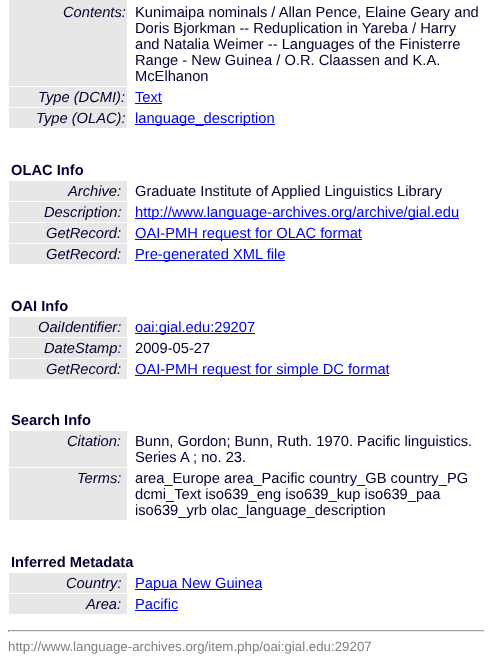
(async () => {
    const canvas = document.querySelector("canvas");
    canvas.width = 493;
    canvas.height = 657;
    const context = canvas.getContext("2d");
    context.miterLimit = 4;
    context.fontKerning = "normal";
    function write(s, x, y, font, color) {
        context.font = font;
        context.fillStyle = color;
        context.fillText(s, x, y);
    }
    function block(x, y, w, h, color) {
        context.fillStyle = color;
        context.fillRect(x, y, w, h);
    }

    block(0, 0, 493, 657, "rgb(255, 255, 255)");
    block(9, 0, 118, 86, "rgb(231, 231, 231)");
    write("Contents:", 63, 17, "italic 14.7px Liberation Sans", "rgb(0, 0, 48)");
    write("Kunimaipa nominals / Allan Pence, Elaine Geary and", 135, 17, "14.7px Liberation Sans", "rgb(0, 0, 48)");
    write("Doris Bjorkman -- Reduplication in Yareba / Harry", 135, 33, "14.7px Liberation Sans", "rgb(0, 0, 48)");
    write("and Natalia Weimer -- Languages of the Finisterre", 135, 49, "14.7px Liberation Sans", "rgb(0, 0, 48)");
    write("Range - New Guinea / O.R. Claassen and K.A.", 135, 65, "14.7px Liberation Sans", "rgb(0, 0, 48)");
    write("McElhanon", 135, 81, "14.7px Liberation Sans", "rgb(0, 0, 48)");
    block(9, 87, 118, 20, "rgb(231, 231, 231)");
    write("Type (DCMI):", 38, 102, "italic 14.7px Liberation Sans", "rgb(0, 0, 48)");
    write("Text", 135, 102, "14.7px Liberation Sans", "rgb(0, 0, 238)");
    block(135, 103, 27, 1, "rgb(0, 0, 238)");
    block(9, 108, 118, 20, "rgb(231, 231, 231)");
    write("Type (OLAC):", 36, 123, "italic 14.7px Liberation Sans", "rgb(0, 0, 48)");
    block(135, 124, 140, 1, "rgb(0, 0, 238)");
    write("language_description", 135, 123, "14.7px Liberation Sans", "rgb(0, 0, 238)");
    write("OLAC Info", 11, 175, "bold 14.7px Liberation Sans", "rgb(0, 0, 48)");
    block(9, 181, 118, 20, "rgb(231, 231, 231)");
    write("Archive:", 68, 196, "italic 14.7px Liberation Sans", "rgb(0, 0, 48)");
    write("Graduate Institute of Applied Linguistics Library", 135, 196, "14.7px Liberation Sans", "rgb(0, 0, 48)");
    block(9, 202, 118, 20, "rgb(231, 231, 231)");
    write("Description:", 44, 217, "italic 14.7px Liberation Sans", "rgb(0, 0, 48)");
    block(135, 218, 324, 1, "rgb(0, 0, 238)");
    write("http://www.language-archives.org/archive/gial.edu", 135, 217, "14.7px Liberation Sans", "rgb(0, 0, 238)");
    block(9, 223, 118, 20, "rgb(231, 231, 231)");
    write("GetRecord:", 46, 238, "italic 14.7px Liberation Sans", "rgb(0, 0, 48)");
    block(135, 239, 227, 1, "rgb(0, 0, 238)");
    write("OAI-PMH request for OLAC format", 135, 238, "14.7px Liberation Sans", "rgb(0, 0, 238)");
    block(9, 244, 118, 20, "rgb(231, 231, 231)");
    write("GetRecord:", 46, 259, "italic 14.7px Liberation Sans", "rgb(0, 0, 48)");
    block(135, 260, 150, 1, "rgb(0, 0, 238)");
    write("Pre-generated XML file", 135, 259, "14.7px Liberation Sans", "rgb(0, 0, 238)");
    write("OAI Info", 11, 311, "bold 14.7px Liberation Sans", "rgb(0, 0, 48)");
    block(9, 317, 118, 20, "rgb(231, 231, 231)");
    write("OaiIdentifier:", 38, 332, "italic 14.7px Liberation Sans", "rgb(0, 0, 48)");
    block(135, 333, 120, 1, "rgb(0, 0, 238)");
    write("oai:gial.edu:29207", 135, 332, "14.7px Liberation Sans", "rgb(0, 0, 238)");
    block(9, 338, 118, 20, "rgb(231, 231, 231)");
    write("DateStamp:", 44, 353, "italic 14.7px Liberation Sans", "rgb(0, 0, 48)");
    write("2009-05-27", 135, 353, "14.7px Liberation Sans", "rgb(0, 0, 48)");
    block(9, 359, 118, 20, "rgb(231, 231, 231)");
    write("GetRecord:", 46, 374, "italic 14.7px Liberation Sans", "rgb(0, 0, 48)");
    block(135, 375, 254, 1, "rgb(0, 0, 238)");
    write("OAI-PMH request for simple DC format", 135, 374, "14.7px Liberation Sans", "rgb(0, 0, 238)");
    write("Search Info", 11, 425, "bold 14.7px Liberation Sans", "rgb(0, 0, 48)");
    block(9, 431, 118, 36, "rgb(231, 231, 231)");
    write("Citation:", 67, 446, "italic 14.7px Liberation Sans", "rgb(0, 0, 48)");
    write("Bunn, Gordon; Bunn, Ruth. 1970. Pacific linguistics.", 135, 446, "14.7px Liberation Sans", "rgb(0, 0, 48)");
    write("Series A ; no. 23.", 135, 462, "14.7px Liberation Sans", "rgb(0, 0, 48)");
    block(9, 468, 118, 52, "rgb(231, 231, 231)");
    write("Terms:", 77, 483, "italic 14.7px Liberation Sans", "rgb(0, 0, 48)");
    write("area_Europe area_Pacific country_GB country_PG", 135, 483, "14.7px Liberation Sans", "rgb(0, 0, 48)");
    write("dcmi_Text iso639_eng iso639_kup iso639_paa", 135, 499, "14.7px Liberation Sans", "rgb(0, 0, 48)");
    write("iso639_yrb olac_language_description", 135, 515, "14.7px Liberation Sans", "rgb(0, 0, 48)");
    write("Inferred Metadata", 11, 567, "bold 14.7px Liberation Sans", "rgb(0, 0, 48)");
    block(9, 573, 118, 20, "rgb(231, 231, 231)");
    write("Country:", 66, 588, "italic 14.7px Liberation Sans", "rgb(0, 0, 48)");
    block(135, 589, 127, 1, "rgb(0, 0, 238)");
    write("Papua New Guinea", 135, 588, "14.7px Liberation Sans", "rgb(0, 0, 238)");
    block(9, 594, 118, 20, "rgb(231, 231, 231)");
    write("Area:", 86, 609, "italic 14.7px Liberation Sans", "rgb(0, 0, 48)");
    write("Pacific", 135, 609, "14.7px Liberation Sans", "rgb(0, 0, 238)");
    block(135, 610, 43, 1, "rgb(0, 0, 238)");
    block(8, 630, 477, 1, "rgb(159, 159, 159)");
    block(484, 630, 1, 2, "rgb(238, 238, 238)");
    block(8, 631, 477, 1, "rgb(238, 238, 238)");
    block(8, 630, 1, 2, "rgb(159, 159, 159)");
    write("http://www.language-archives.org/item.php/oai:gial.edu:29207", 8, 651, "13.3px Liberation Sans", "rgb(128, 128, 128)");
})();
